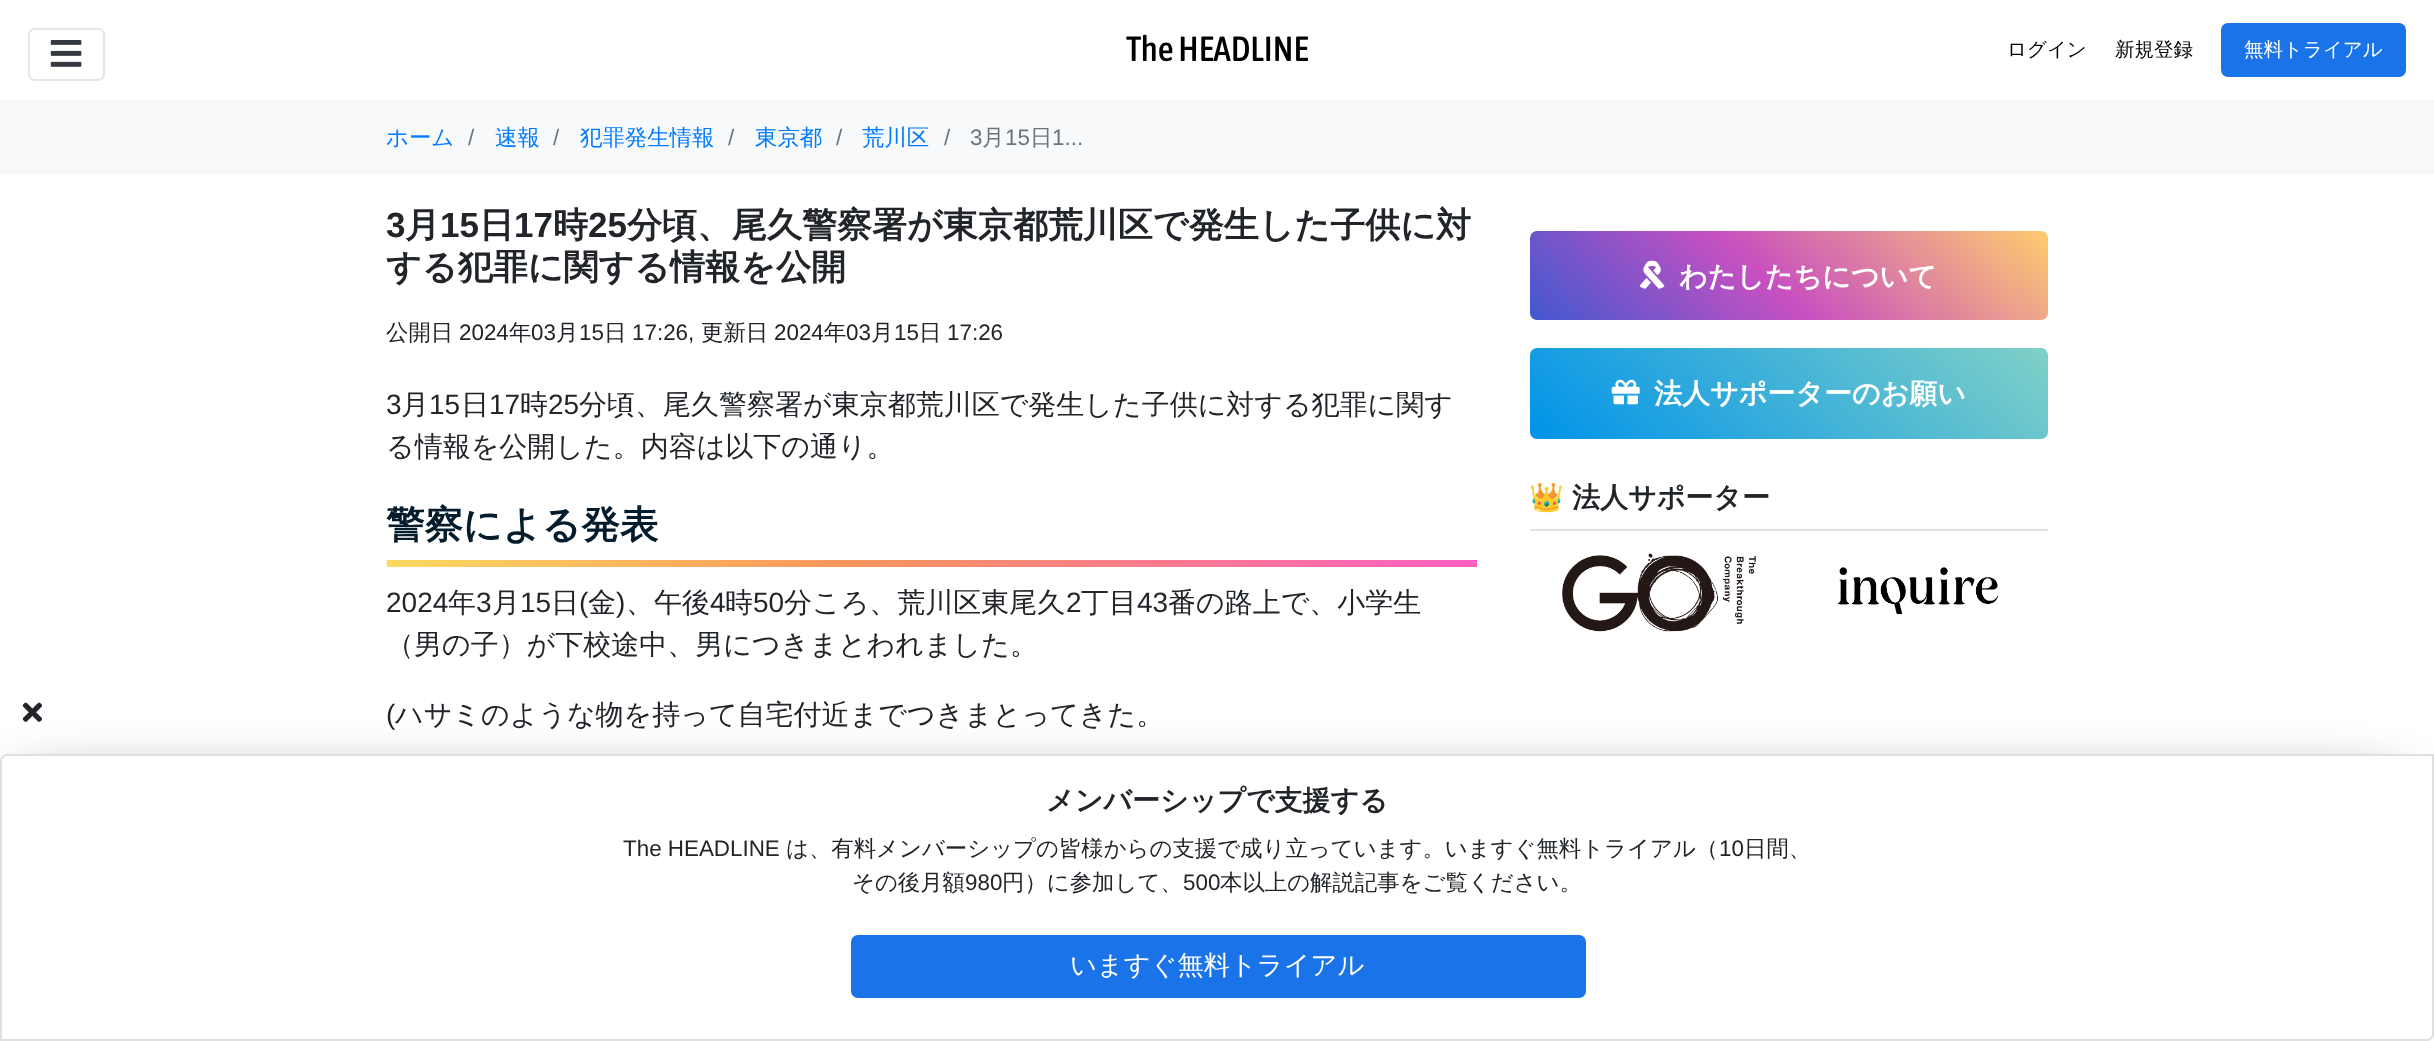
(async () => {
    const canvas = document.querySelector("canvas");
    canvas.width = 2434;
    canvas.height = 1041;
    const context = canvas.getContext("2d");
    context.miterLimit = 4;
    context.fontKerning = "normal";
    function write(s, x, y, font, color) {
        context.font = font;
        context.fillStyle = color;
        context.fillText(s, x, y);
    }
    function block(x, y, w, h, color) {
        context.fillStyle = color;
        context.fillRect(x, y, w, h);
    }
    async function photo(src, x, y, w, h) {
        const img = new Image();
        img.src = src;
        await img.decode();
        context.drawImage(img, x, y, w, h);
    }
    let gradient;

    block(0, 0, 2434, 1041, "rgb(255, 255, 255)");
    context.beginPath();
    context.roundRect(29, 29, 75, 51, 6);
    context.strokeStyle = "rgb(230, 230, 230)";
    context.lineWidth = 2;
    context.stroke();
    await photo("media/1.png", 50, 40, 32, 27);
    write("The HEADLINE", 1126, 61, "500 35px Asap Condensed", "rgb(0, 0, 0)");
    write("ログイン", 2007, 56, "500 19.5px WenQuanYi Zen Hei", "rgb(0, 0, 0)");
    write("新規登録", 2115, 56, "500 19.5px WenQuanYi Zen Hei", "rgb(0, 0, 0)");
    context.fillStyle = "rgb(26, 115, 232)";
    context.beginPath();
    context.roundRect(2222, 24, 183, 52, 6);
    context.fill();
    context.strokeStyle = "rgb(26, 115, 232)";
    context.stroke();
    write("無料トライアル", 2244, 56, "500 19.5px WenQuanYi Zen Hei", "rgb(255, 255, 255)");
    block(0, 100, 2434, 75, "rgb(248, 249, 250)");
    write("ホーム", 386, 145, "500 22.4px WenQuanYi Zen Hei", "rgb(0, 123, 255)");
    write("/", 468, 145, "22.4px Liberation Sans", "rgb(108, 117, 125)");
    write("速報", 495, 145, "500 22.4px WenQuanYi Zen Hei", "rgb(0, 123, 255)");
    write("/", 553, 145, "22.4px Liberation Sans", "rgb(108, 117, 125)");
    write("犯罪発生情報", 580, 145, "500 22.4px WenQuanYi Zen Hei", "rgb(0, 123, 255)");
    write("/", 728, 145, "22.4px Liberation Sans", "rgb(108, 117, 125)");
    write("東京都", 755, 145, "500 22.4px WenQuanYi Zen Hei", "rgb(0, 123, 255)");
    write("/", 836, 145, "22.4px Liberation Sans", "rgb(108, 117, 125)");
    write("荒川区", 862, 145, "500 22.4px WenQuanYi Zen Hei", "rgb(0, 123, 255)");
    write("/", 944, 145, "22.4px Liberation Sans", "rgb(108, 117, 125)");
    write("3", 970, 145, "22.4px Liberation Sans", "rgb(108, 117, 125)");
    write("月", 982, 145, "500 22.4px WenQuanYi Zen Hei", "rgb(108, 117, 125)");
    write("15", 1005, 145, "22.4px Liberation Sans", "rgb(108, 117, 125)");
    write("日", 1030, 145, "500 22.4px WenQuanYi Zen Hei", "rgb(108, 117, 125)");
    write("1...", 1052, 145, "22.4px Liberation Sans", "rgb(108, 117, 125)");
    write("3", 386, 237, "bold 35px Liberation Sans", "rgb(33, 37, 41)");
    write("月", 405, 237, "bold 35px WenQuanYi Zen Hei", "rgb(33, 37, 41)");
    write("15", 440, 237, "bold 35px Liberation Sans", "rgb(33, 37, 41)");
    write("日", 479, 237, "bold 35px WenQuanYi Zen Hei", "rgb(33, 37, 41)");
    write("17", 514, 237, "bold 35px Liberation Sans", "rgb(33, 37, 41)");
    write("時", 553, 237, "bold 35px WenQuanYi Zen Hei", "rgb(33, 37, 41)");
    write("25", 588, 237, "bold 35px Liberation Sans", "rgb(33, 37, 41)");
    write("分頃、尾久警察署が東京都荒川区で発生した子供に対", 627, 237, "bold 35px WenQuanYi Zen Hei", "rgb(33, 37, 41)");
    write("する犯罪に関する情報を公開", 386, 279, "bold 35px WenQuanYi Zen Hei", "rgb(33, 37, 41)");
    write("公開日", 386, 340, "500 22.4px WenQuanYi Zen Hei", "rgb(33, 37, 41)");
    write("2024", 459, 340, "22.4px Liberation Sans", "rgb(33, 37, 41)");
    write("年", 509, 340, "500 22.4px WenQuanYi Zen Hei", "rgb(33, 37, 41)");
    write("03", 531, 340, "22.4px Liberation Sans", "rgb(33, 37, 41)");
    write("月", 556, 340, "500 22.4px WenQuanYi Zen Hei", "rgb(33, 37, 41)");
    write("15", 579, 340, "22.4px Liberation Sans", "rgb(33, 37, 41)");
    write("日", 604, 340, "500 22.4px WenQuanYi Zen Hei", "rgb(33, 37, 41)");
    write("17:26,", 632, 340, "22.4px Liberation Sans", "rgb(33, 37, 41)");
    write("更新日", 701, 340, "500 22.4px WenQuanYi Zen Hei", "rgb(33, 37, 41)");
    write("2024", 774, 340, "22.4px Liberation Sans", "rgb(33, 37, 41)");
    write("年", 824, 340, "500 22.4px WenQuanYi Zen Hei", "rgb(33, 37, 41)");
    write("03", 846, 340, "22.4px Liberation Sans", "rgb(33, 37, 41)");
    write("月", 871, 340, "500 22.4px WenQuanYi Zen Hei", "rgb(33, 37, 41)");
    write("15", 894, 340, "22.4px Liberation Sans", "rgb(33, 37, 41)");
    write("日", 919, 340, "500 22.4px WenQuanYi Zen Hei", "rgb(33, 37, 41)");
    write("17:26", 947, 340, "22.4px Liberation Sans", "rgb(33, 37, 41)");
    write("3", 386, 414, "28px Liberation Sans", "rgb(33, 37, 41)");
    write("月", 401, 414, "500 28px WenQuanYi Zen Hei", "rgb(33, 37, 41)");
    write("15", 429, 414, "28px Liberation Sans", "rgb(33, 37, 41)");
    write("日", 461, 414, "500 28px WenQuanYi Zen Hei", "rgb(33, 37, 41)");
    write("17", 489, 414, "28px Liberation Sans", "rgb(33, 37, 41)");
    write("時", 520, 414, "500 28px WenQuanYi Zen Hei", "rgb(33, 37, 41)");
    write("25", 548, 414, "28px Liberation Sans", "rgb(33, 37, 41)");
    write("分頃、尾久警察署が東京都荒川区で発生した子供に対する犯罪に関す", 579, 414, "500 28px WenQuanYi Zen Hei", "rgb(33, 37, 41)");
    write("る情報を公開した。内容は以下の通り。", 386, 456, "500 28px WenQuanYi Zen Hei", "rgb(33, 37, 41)");
    await photo("media/2.png", 386, 560, 1091, 7);
    write("警察による発表", 386, 538, "bold 38.5px WenQuanYi Zen Hei", "rgb(5, 28, 44)");
    write("2024", 386, 612, "28px Liberation Sans", "rgb(33, 37, 41)");
    write("年", 448, 612, "500 28px WenQuanYi Zen Hei", "rgb(33, 37, 41)");
    write("3", 476, 612, "28px Liberation Sans", "rgb(33, 37, 41)");
    write("月", 492, 612, "500 28px WenQuanYi Zen Hei", "rgb(33, 37, 41)");
    write("15", 520, 612, "28px Liberation Sans", "rgb(33, 37, 41)");
    write("日", 551, 612, "500 28px WenQuanYi Zen Hei", "rgb(33, 37, 41)");
    write("(", 579, 612, "28px Liberation Sans", "rgb(33, 37, 41)");
    write("金", 588, 612, "500 28px WenQuanYi Zen Hei", "rgb(33, 37, 41)");
    write(")", 616, 612, "28px Liberation Sans", "rgb(33, 37, 41)");
    write("、午後", 626, 612, "500 28px WenQuanYi Zen Hei", "rgb(33, 37, 41)");
    write("4", 710, 612, "28px Liberation Sans", "rgb(33, 37, 41)");
    write("時", 725, 612, "500 28px WenQuanYi Zen Hei", "rgb(33, 37, 41)");
    write("50", 753, 612, "28px Liberation Sans", "rgb(33, 37, 41)");
    write("分ころ、荒川区東尾久", 784, 612, "500 28px WenQuanYi Zen Hei", "rgb(33, 37, 41)");
    write("2", 1066, 612, "28px Liberation Sans", "rgb(33, 37, 41)");
    write("丁目", 1081, 612, "500 28px WenQuanYi Zen Hei", "rgb(33, 37, 41)");
    write("43", 1137, 612, "28px Liberation Sans", "rgb(33, 37, 41)");
    write("番の路上で、小学生", 1168, 612, "500 28px WenQuanYi Zen Hei", "rgb(33, 37, 41)");
    write("（男の子）が下校途中、男につきまとわれました。", 386, 654, "500 28px WenQuanYi Zen Hei", "rgb(33, 37, 41)");
    write("(", 386, 724, "28px Liberation Sans", "rgb(33, 37, 41)");
    write("ハサミのような物を持って自宅付近までつきまとってきた。", 395, 724, "500 28px WenQuanYi Zen Hei", "rgb(33, 37, 41)");
    gradient = context.createLinearGradient(1646, 429, 1931, 123);
    gradient.addColorStop(0, "rgb(65, 88, 208)");
    gradient.addColorStop(0.46, "rgb(200, 80, 192)");
    gradient.addColorStop(1, "rgb(255, 204, 112)");
    context.fillStyle = gradient;
    context.beginPath();
    context.roundRect(1530, 231, 518, 89, 7);
    context.fill();
    await photo("media/3.png", 1639, 260, 26, 29);
    write("わたしたちについて", 1679, 286, "bold 28px WenQuanYi Zen Hei", "rgb(255, 255, 255)");
    gradient = context.createLinearGradient(1645, 547, 1932, 240);
    gradient.addColorStop(0, "rgb(0, 147, 233)");
    gradient.addColorStop(1, "rgb(128, 208, 199)");
    context.fillStyle = gradient;
    context.beginPath();
    context.roundRect(1530, 348, 518, 91, 7);
    context.fill();
    await photo("media/4.png", 1611, 379, 29, 26);
    write("法人サポーターのお願い", 1654, 403, "bold 28px WenQuanYi Zen Hei", "rgb(255, 255, 255)");
    block(1530, 529, 518, 2, "rgb(222, 226, 230)");
    write("👑", 1529, 507, "bold 28px Noto Color Emoji", "rgb(33, 37, 41)");
    write("法人サポーター", 1572, 507, "bold 28px WenQuanYi Zen Hei", "rgb(33, 37, 41)");
    await photo("media/5.png", 1562, 553, 194, 79);
    await photo("media/6.png", 1838, 567, 160, 48);
    await photo("media/7.png", 22, 702, 20, 20);
    context.fillStyle = "rgba(0, 0, 0, 0.8)";
    context.filter = "blur(28px)";
    context.beginPath();
    context.rect(25, 789, 2367, 221);
    context.fill();
    context.filter = "none";
    context.fillStyle = "rgb(255, 255, 255)";
    context.beginPath();
    context.roundRect(1, 755, 2432, 285, [6, 0, 6, 0]);
    context.fill();
    context.strokeStyle = "rgb(223, 223, 223)";
    context.stroke();
    write("メンバーシップで支援する", 1046, 810, "bold 28px WenQuanYi Zen Hei", "rgb(33, 37, 41)");
    write("The HEADLINE", 623, 856, "22.4px Liberation Sans", "rgb(33, 37, 41)");
    write("は、有料メンバーシップの皆様からの支援で成り立っています。いますぐ無料トライアル（", 786, 856, "500 22.4px WenQuanYi Zen Hei", "rgb(33, 37, 41)");
    write("10", 1719, 856, "22.4px Liberation Sans", "rgb(33, 37, 41)");
    write("日間、", 1744, 856, "500 22.4px WenQuanYi Zen Hei", "rgb(33, 37, 41)");
    write("その後月額", 852, 890, "500 22.4px WenQuanYi Zen Hei", "rgb(33, 37, 41)");
    write("980", 965, 890, "22.4px Liberation Sans", "rgb(33, 37, 41)");
    write("円）に参加して、", 1002, 890, "500 22.4px WenQuanYi Zen Hei", "rgb(33, 37, 41)");
    write("500", 1183, 890, "22.4px Liberation Sans", "rgb(33, 37, 41)");
    write("本以上の解説記事をご覧ください。", 1220, 890, "500 22.4px WenQuanYi Zen Hei", "rgb(33, 37, 41)");
    context.fillStyle = "rgb(26, 115, 232)";
    context.beginPath();
    context.roundRect(852, 936, 733, 61, 6);
    context.fill();
    context.strokeStyle = "rgb(26, 115, 232)";
    context.stroke();
    write("いますぐ無料トライアル", 1070, 974, "500 26.25px WenQuanYi Zen Hei", "rgb(255, 255, 255)");
})();
